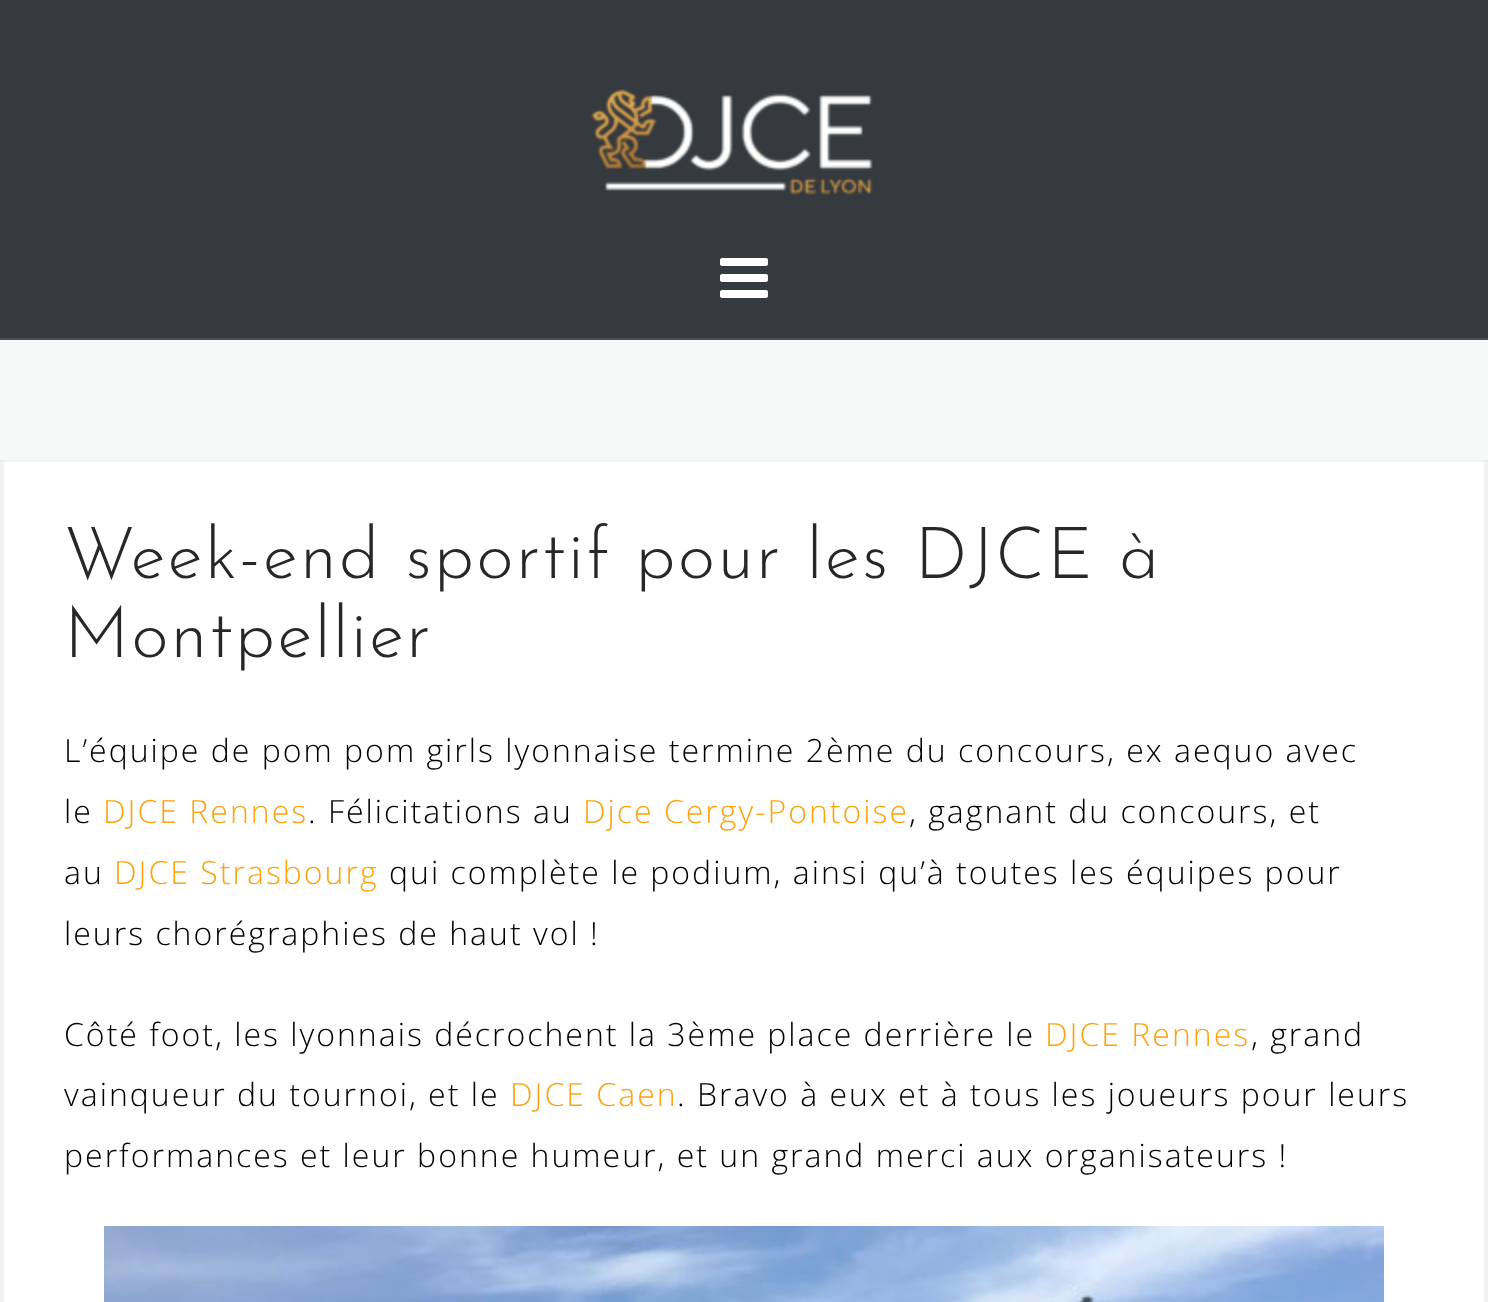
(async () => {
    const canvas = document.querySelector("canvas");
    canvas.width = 1488;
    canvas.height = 1302;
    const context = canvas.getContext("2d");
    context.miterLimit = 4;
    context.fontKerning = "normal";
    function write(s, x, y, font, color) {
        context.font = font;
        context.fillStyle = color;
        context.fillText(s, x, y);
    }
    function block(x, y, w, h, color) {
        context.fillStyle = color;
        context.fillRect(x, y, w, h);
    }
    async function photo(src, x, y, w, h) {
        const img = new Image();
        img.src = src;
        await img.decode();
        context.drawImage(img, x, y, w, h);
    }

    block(0, 0, 1488, 1302, "rgb(245, 249, 248)");
    block(0, 0, 1488, 338, "rgb(53, 58, 62)");
    block(0, 338, 1488, 2, "rgb(73, 78, 81)");
    await photo("media/1.png", 591, 89, 282, 106);
    await photo("media/2.png", 720, 258, 48, 40);
    block(1486, 460, 2, 842, "rgb(242, 242, 243)");
    block(0, 460, 2, 842, "rgb(242, 242, 243)");
    context.fillStyle = "rgb(255, 255, 255)";
    context.beginPath();
    context.rect(3, 461, 1482, 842);
    context.fill();
    context.strokeStyle = "rgb(242, 242, 243)";
    context.lineWidth = 2;
    context.stroke();
    context.letterSpacing = "2px";
    write("Week-end sportif pour les DJCE à", 64, 578, "100 72px Josefin Sans", "rgb(39, 39, 39)");
    write("Montpellier", 64, 657, "100 72px Josefin Sans", "rgb(39, 39, 39)");
    write("L’équipe de pom pom girls lyonnaise termine 2ème du concours, ex aequo avec", 64, 762, "300 32px Open Sans", "rgb(0, 0, 0)");
    write("le", 64, 823, "300 32px Open Sans", "rgb(0, 0, 0)");
    write("DJCE Rennes", 103, 823, "300 32px Open Sans", "rgb(252, 163, 17)");
    write(". Félicitations au", 308, 823, "300 32px Open Sans", "rgb(0, 0, 0)");
    write("Djce Cergy-Pontoise", 583, 823, "300 32px Open Sans", "rgb(252, 163, 17)");
    write(", gagnant du concours, et", 909, 823, "300 32px Open Sans", "rgb(0, 0, 0)");
    write("au", 64, 884, "300 32px Open Sans", "rgb(0, 0, 0)");
    write("DJCE Strasbourg", 114, 884, "300 32px Open Sans", "rgb(252, 163, 17)");
    write("qui complète le podium, ainsi qu’à toutes les équipes pour", 389, 884, "300 32px Open Sans", "rgb(0, 0, 0)");
    write("leurs chorégraphies de haut vol !", 64, 945, "300 32px Open Sans", "rgb(0, 0, 0)");
    write("Côté foot, les lyonnais décrochent la 3ème place derrière le", 64, 1046, "300 32px Open Sans", "rgb(0, 0, 0)");
    write("DJCE Rennes", 1045, 1046, "300 32px Open Sans", "rgb(252, 163, 17)");
    write(", grand", 1251, 1046, "300 32px Open Sans", "rgb(0, 0, 0)");
    write("vainqueur du tournoi, et le", 64, 1106, "300 32px Open Sans", "rgb(0, 0, 0)");
    write("DJCE Caen", 510, 1106, "300 32px Open Sans", "rgb(252, 163, 17)");
    write(". Bravo à eux et à tous les joueurs pour leurs", 677, 1106, "300 32px Open Sans", "rgb(0, 0, 0)");
    write("performances et leur bonne humeur, et un grand merci aux organisateurs !", 64, 1167, "300 32px Open Sans", "rgb(0, 0, 0)");
    await photo("media/3.png", 104, 1226, 1280, 76);
})();
